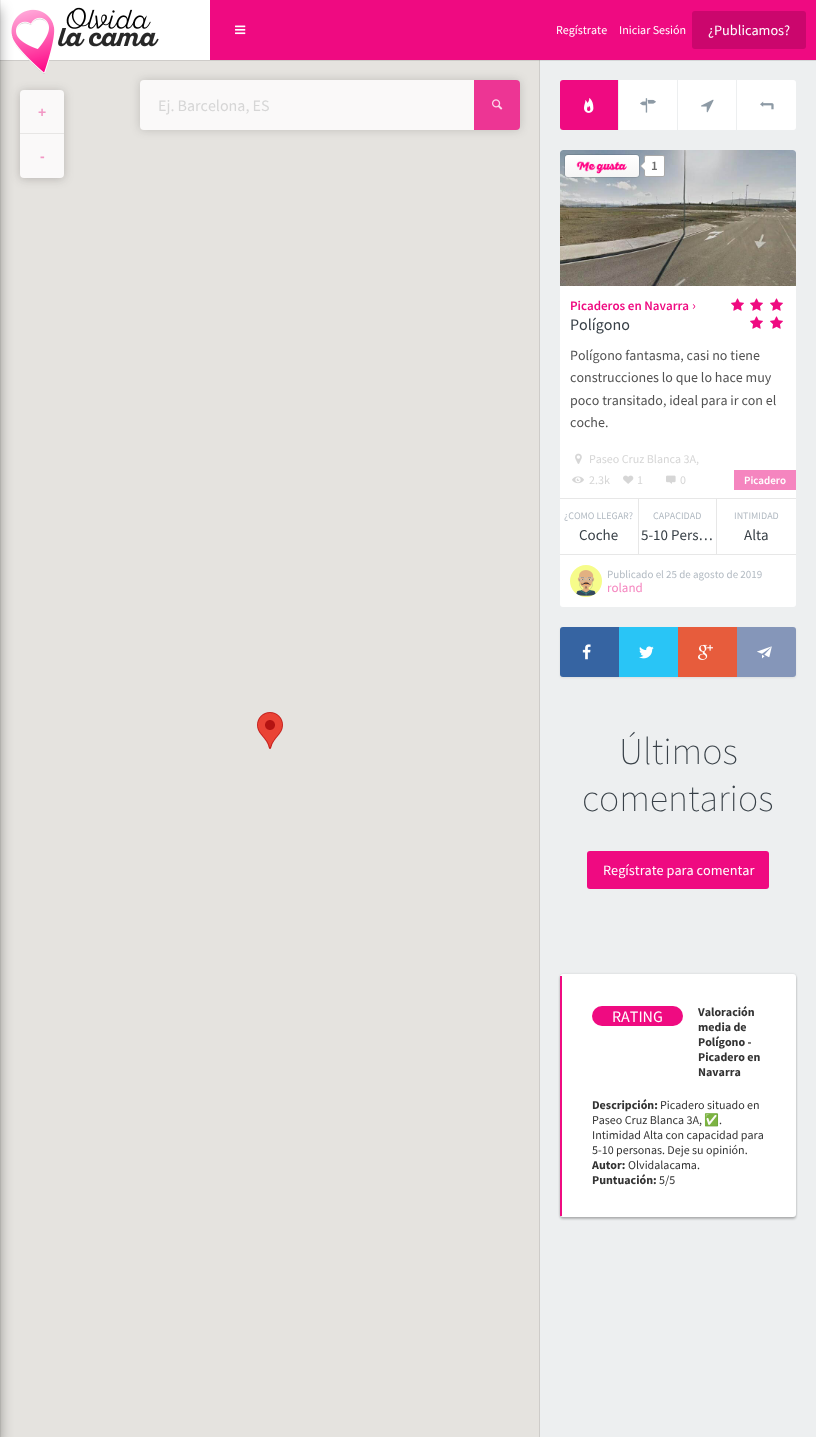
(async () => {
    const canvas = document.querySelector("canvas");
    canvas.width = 816;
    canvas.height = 1437;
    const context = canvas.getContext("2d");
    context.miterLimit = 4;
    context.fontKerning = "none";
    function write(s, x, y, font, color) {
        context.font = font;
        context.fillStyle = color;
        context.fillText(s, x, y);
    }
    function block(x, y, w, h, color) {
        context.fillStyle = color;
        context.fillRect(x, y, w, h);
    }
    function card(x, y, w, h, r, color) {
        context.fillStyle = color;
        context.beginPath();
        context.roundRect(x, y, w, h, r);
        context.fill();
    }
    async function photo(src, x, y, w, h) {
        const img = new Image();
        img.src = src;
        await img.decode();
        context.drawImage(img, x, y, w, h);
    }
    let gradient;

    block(0, 0, 816, 1437, "rgb(255, 255, 255)");
    block(0, 60, 540, 1377, "rgb(229, 227, 223)");
    context.fillStyle = "rgba(6, 8, 8, 0.1)";
    context.filter = "blur(0.5px)";
    context.beginPath();
    context.rect(539, 60, 276, 1377);
    context.fill();
    context.filter = "none";
    block(540, 60, 276, 1377, "rgb(237, 239, 240)");
    context.save();
    context.beginPath();
    context.rect(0, 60, 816, 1);
    context.clip();
    context.fillStyle = "rgba(6, 8, 8, 0.1)";
    context.filter = "blur(0.5px)";
    context.beginPath();
    context.rect(0, 1, 816, 60);
    context.fill();
    context.filter = "none";
    context.restore();
    context.strokeStyle = "rgba(0, 0, 0, 0.06)";
    context.strokeRect(-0.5, -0.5, 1, 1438);
    context.fillStyle = "rgba(46, 45, 45, 0.2)";
    context.filter = "blur(5px)";
    context.beginPath();
    context.roundRect(140, 80, 380, 50, 4);
    context.fill();
    context.filter = "none";
    await photo("media/1.png", 11, 7, 148, 67);
    context.fillStyle = "rgba(46, 45, 45, 0.25)";
    context.filter = "blur(5px)";
    context.beginPath();
    context.roundRect(20, 91, 44, 88, 4);
    context.fill();
    context.filter = "none";
    context.fillStyle = "rgb(250, 249, 249)";
    context.beginPath();
    context.roundRect(20, 90, 44, 43, [4, 4, 0, 0]);
    context.fill();
    block(20, 133, 44, 1, "rgb(231, 230, 229)");
    context.fillStyle = "rgb(250, 249, 249)";
    context.beginPath();
    context.roundRect(20, 134, 44, 44, [0, 0, 4, 4]);
    context.fill();
    context.fillStyle = "rgba(0, 0, 0, 0.36)";
    context.filter = "blur(6.5px)";
    context.beginPath();
    context.rect(-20, 8, 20, 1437);
    context.fill();
    context.filter = "none";
    block(210, 0, 606, 60, "rgb(239, 10, 129)");
    await photo("media/2.png", 235, 25, 11, 10);
    write("Regístrate", 556, 34, "12px Source Sans Pro", "rgb(255, 255, 255)");
    write("Iniciar Sesión", 619, 34, "12px Source Sans Pro", "rgb(255, 255, 255)");
    card(692, 11, 114, 38, 3, "rgb(203, 6, 109)");
    write("¿Publicamos?", 708, 35, "14.25px Source Sans Pro", "rgb(255, 255, 255)");
    await photo("media/3.png", 257, 712, 26, 37);
    write("+", 38, 117, "bold 14px Liberation Sans", "rgb(242, 152, 197)");
    write("-", 40, 161, "bold 14px Liberation Sans", "rgb(242, 152, 197)");
    context.fillStyle = "rgb(250, 249, 249)";
    context.beginPath();
    context.roundRect(140, 80, 334, 50, [4, 0, 0, 4]);
    context.fill();
    write("Ej. Barcelona, ES", 158, 111, "16px Source Sans Pro", "rgb(214, 214, 214)");
    context.fillStyle = "rgb(237, 53, 148)";
    context.beginPath();
    context.roundRect(474, 80, 46, 50, [0, 4, 4, 0]);
    context.fill();
    await photo("media/4.png", 492, 99, 11, 11);
    card(560, 80, 236, 50, 3, "rgb(255, 255, 255)");
    context.fillStyle = "rgb(239, 10, 129)";
    context.beginPath();
    context.roundRect(560, 80, 59, 50, [3, 0, 0, 3]);
    context.fill();
    block(618, 80, 1, 50, "rgb(237, 239, 240)");
    await photo("media/5.png", 584, 98, 10, 15);
    block(677, 80, 1, 50, "rgb(237, 239, 240)");
    await photo("media/6.png", 640, 98, 16, 15);
    block(736, 80, 1, 50, "rgb(237, 239, 240)");
    await photo("media/7.png", 701, 99, 13, 14);
    await photo("media/8.png", 760, 101, 14, 9);
    card(560, 150, 236, 457, 3, "rgb(255, 255, 255)");
    await photo("media/9.png", 560, 150, 236, 136);
    context.beginPath();
    context.roundRect(564.5, 154.5, 75, 23, 3.5);
    context.strokeStyle = "rgba(0, 0, 0, 0.1)";
    context.stroke();
    gradient = context.createLinearGradient(602, 155, 602, 177);
    gradient.addColorStop(0, "rgb(255, 255, 255)");
    gradient.addColorStop(1, "rgb(245, 245, 245)");
    context.fillStyle = gradient;
    context.beginPath();
    context.roundRect(565, 155, 74, 22, 3);
    context.fill();
    await photo("media/10.png", 576, 161, 51, 13);
    context.fillStyle = "rgb(255, 255, 255)";
    context.beginPath();
    context.roundRect(644.5, 155.5, 20, 21, 1.5);
    context.fill();
    context.strokeStyle = "rgb(170, 170, 170)";
    context.stroke();
    context.fillStyle = "rgb(170, 170, 170)";
    context.beginPath();
    context.moveTo(645, 161);
    context.lineTo(645, 171);
    context.lineTo(640, 166);
    context.closePath();
    context.fill();
    context.fillStyle = "rgb(255, 255, 255)";
    context.beginPath();
    context.moveTo(646, 161);
    context.lineTo(646, 171);
    context.lineTo(641, 166);
    context.closePath();
    context.fill();
    write("1", 651, 170, "600 13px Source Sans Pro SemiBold", "rgb(108, 108, 108)");
    write("Picaderos en Navarra", 570, 310, "600 13px Source Sans Pro SemiBold", "rgb(239, 10, 129)");
    write("›", 692, 310, "14px Source Sans Pro", "rgb(239, 10, 129)");
    write("Polígono", 570, 330, "16px Source Sans Pro", "rgb(56, 64, 71)");
    await photo("media/11.png", 731, 298, 13, 13);
    await photo("media/11.png", 750, 298, 13, 13);
    await photo("media/11.png", 770, 298, 13, 13);
    await photo("media/11.png", 750, 316, 13, 13);
    await photo("media/11.png", 770, 316, 13, 13);
    write("Polígono fantasma, casi no tiene", 570, 360, "14px Source Sans Pro", "rgb(82, 82, 82)");
    write("construcciones lo que lo hace muy", 570, 382, "14px Source Sans Pro", "rgb(82, 82, 82)");
    write("poco transitado, ideal para ir con el", 570, 405, "14px Source Sans Pro", "rgb(82, 82, 82)");
    write("coche.", 570, 427, "14px Source Sans Pro", "rgb(82, 82, 82)");
    await photo("media/12.png", 575, 453, 7, 11);
    write("Paseo Cruz Blanca 3A,", 589, 463, "12px Source Sans Pro", "rgb(214, 214, 214)");
    await photo("media/13.png", 572, 476, 12, 8);
    write("2.3k", 589, 484, "12px Source Sans Pro", "rgb(214, 214, 214)");
    await photo("media/14.png", 623, 475, 11, 9);
    write("1", 637, 484, "12px Source Sans Pro", "rgb(214, 214, 214)");
    await photo("media/15.png", 666, 475, 10, 9);
    write("0", 680, 484, "12px Source Sans Pro", "rgb(214, 214, 214)");
    block(734, 470, 62, 20, "rgb(245, 133, 191)");
    write("Picadero", 744, 484, "600 11px Source Sans Pro SemiBold", "rgb(255, 255, 255)");
    block(560, 498, 236, 1, "rgb(231, 231, 231)");
    block(560, 554, 236, 1, "rgb(231, 231, 231)");
    block(638, 499, 1, 55, "rgb(231, 231, 231)");
    write("¿COMO LLEGAR?", 564, 519, "10px Source Sans Pro", "rgb(178, 186, 194)");
    write("Coche", 579, 540, "15px Source Sans Pro", "rgb(56, 64, 71)");
    block(716, 499, 1, 55, "rgb(231, 231, 231)");
    write("CAPACIDAD", 653, 519, "10px Source Sans Pro", "rgb(178, 186, 194)");
    write("5-10 Pers…", 641, 540, "15px Source Sans Pro", "rgb(56, 64, 71)");
    write("INTIMIDAD", 734, 519, "10px Source Sans Pro", "rgb(178, 186, 194)");
    write("Alta", 744, 540, "15px Source Sans Pro", "rgb(56, 64, 71)");
    await photo("media/16.png", 570, 565, 32, 32);
    write("Publicado el 25 de agosto de 2019", 607, 578, "11px Source Sans Pro", "rgb(178, 186, 194)");
    write("roland", 607, 592, "13px Source Sans Pro", "rgb(245, 133, 191)");
    context.fillStyle = "rgba(0, 0, 0, 0.07)";
    context.filter = "blur(1px)";
    context.beginPath();
    context.roundRect(560, 628, 236, 50, 3);
    context.fill();
    context.filter = "none";
    context.fillStyle = "rgb(54, 100, 162)";
    context.beginPath();
    context.roundRect(560, 627, 59, 50, [3, 0, 0, 3]);
    context.fill();
    await photo("media/17.png", 582, 644, 9, 16);
    block(619, 627, 59, 50, "rgb(41, 197, 246)");
    await photo("media/18.png", 639, 646, 15, 13);
    block(678, 627, 59, 50, "rgb(231, 92, 60)");
    await photo("media/19.png", 698, 644, 15, 16);
    context.fillStyle = "rgb(133, 150, 185)";
    context.beginPath();
    context.roundRect(737, 627, 59, 50, [0, 3, 3, 0]);
    context.fill();
    await photo("media/20.png", 757, 646, 15, 13);
    write("Últimos", 619, 764, "200 38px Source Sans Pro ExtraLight", "rgb(56, 64, 71)");
    write("comentarios", 582, 811, "200 38px Source Sans Pro ExtraLight", "rgb(56, 64, 71)");
    card(587, 851, 182, 38, 3, "rgb(239, 10, 129)");
    write("Regístrate para comentar", 603, 875, "14.25px Source Sans Pro", "rgb(255, 255, 255)");
    context.fillStyle = "rgba(0, 0, 0, 0.24)";
    context.filter = "blur(1px)";
    context.beginPath();
    context.roundRect(560, 976, 236, 243, 3);
    context.fill();
    context.filter = "none";
    context.fillStyle = "rgba(0, 0, 0, 0.12)";
    context.filter = "blur(1px)";
    context.beginPath();
    context.roundRect(560, 974, 236, 243, 3);
    context.fill();
    context.filter = "none";
    card(560, 974, 236, 243, 3, "rgb(255, 255, 255)");
    block(560, 976, 2, 240, "rgb(239, 11, 129)");
    card(592, 1006, 91, 20, 10, "rgb(239, 11, 129)");
    write("RATING", 612, 1022, "16px Source Sans Pro", "rgb(255, 255, 255)");
    write("Valoración", 698, 1016, "bold 12px Source Sans Pro", "rgb(51, 51, 51)");
    write("media de", 698, 1031, "bold 12px Source Sans Pro", "rgb(51, 51, 51)");
    write("Polígono -", 698, 1046, "bold 12px Source Sans Pro", "rgb(51, 51, 51)");
    write("Picadero en", 698, 1061, "bold 12px Source Sans Pro", "rgb(51, 51, 51)");
    write("Navarra", 698, 1076, "bold 12px Source Sans Pro", "rgb(51, 51, 51)");
    write("Descripción:", 592, 1109, "bold 12px Source Sans Pro", "rgb(51, 51, 51)");
    write("Picadero situado en", 660, 1109, "12px Source Sans Pro", "rgb(51, 51, 51)");
    write("Paseo Cruz Blanca 3A,", 592, 1124, "12px Source Sans Pro", "rgb(51, 51, 51)");
    write("✅", 704, 1124, "12px Noto Color Emoji", "rgb(51, 51, 51)");
    write(".", 719, 1124, "12px Source Sans Pro", "rgb(51, 51, 51)");
    write("Intimidad Alta con capacidad para", 592, 1139, "12px Source Sans Pro", "rgb(51, 51, 51)");
    write("5-10 personas. Deje su opinión.", 592, 1154, "12px Source Sans Pro", "rgb(51, 51, 51)");
    write("Autor:", 592, 1169, "bold 12px Source Sans Pro", "rgb(51, 51, 51)");
    write("Olvidalacama.", 628, 1169, "12px Source Sans Pro", "rgb(51, 51, 51)");
    write("Puntuación:", 592, 1184, "bold 12px Source Sans Pro", "rgb(51, 51, 51)");
    write("5/5", 659, 1184, "12px Source Sans Pro", "rgb(51, 51, 51)");
})();
